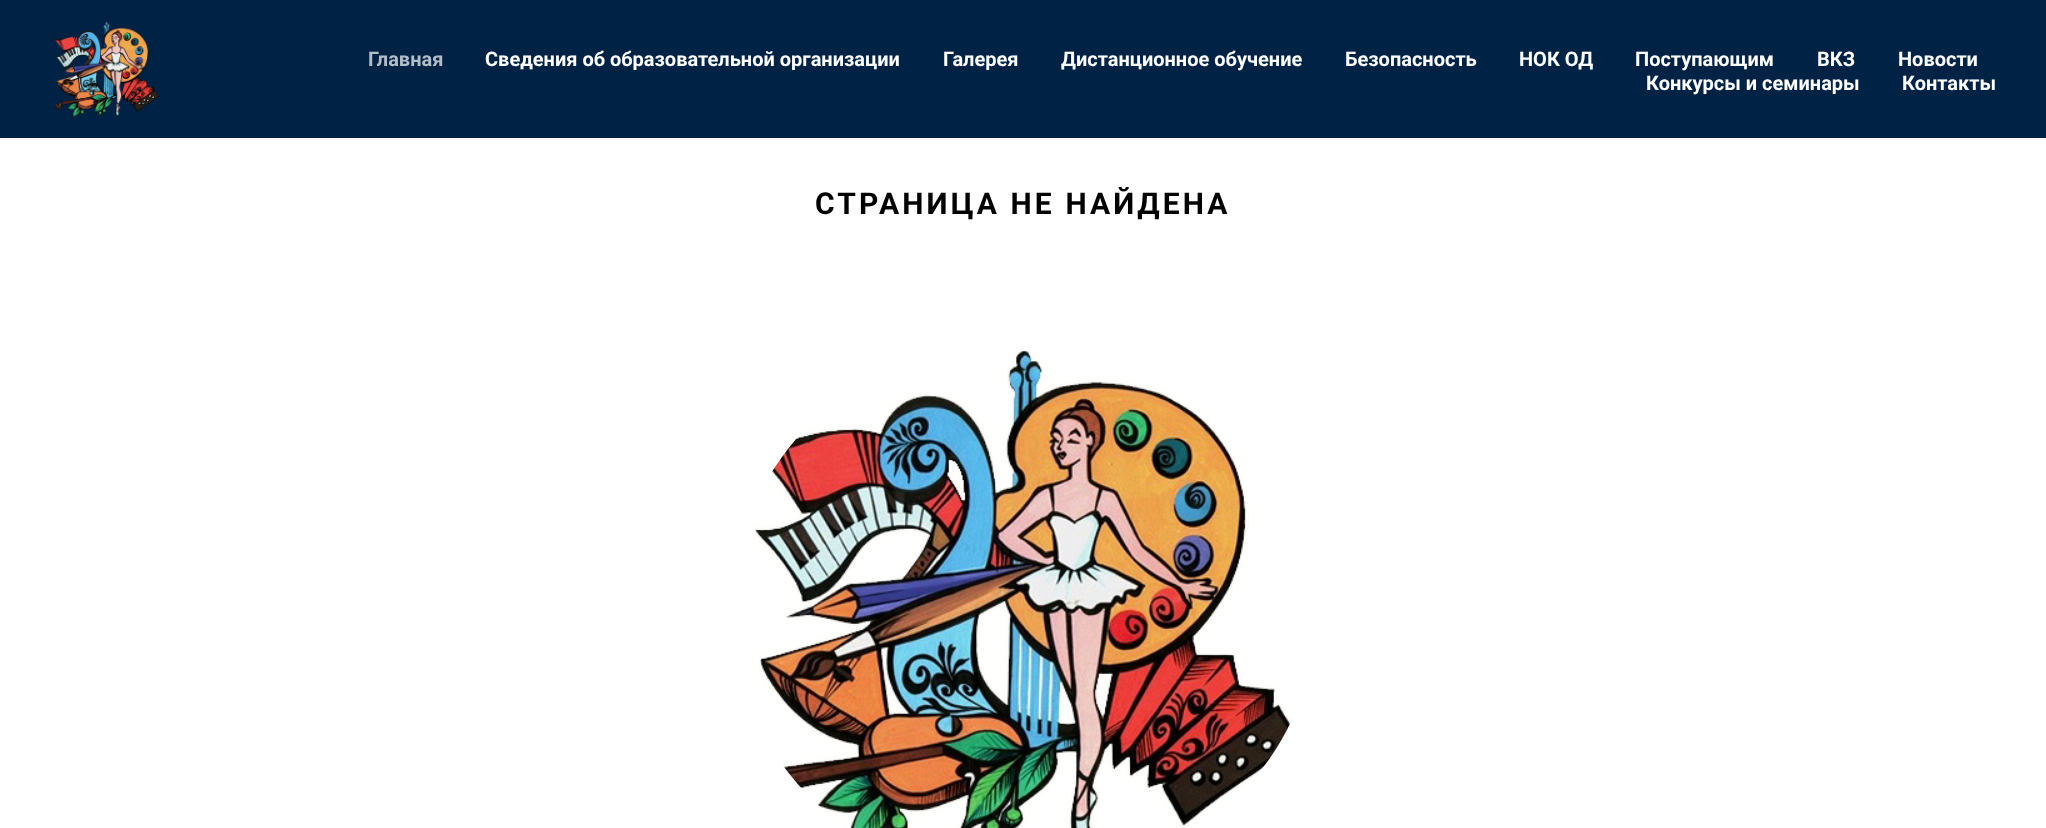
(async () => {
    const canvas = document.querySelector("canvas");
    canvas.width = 2046;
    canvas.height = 828;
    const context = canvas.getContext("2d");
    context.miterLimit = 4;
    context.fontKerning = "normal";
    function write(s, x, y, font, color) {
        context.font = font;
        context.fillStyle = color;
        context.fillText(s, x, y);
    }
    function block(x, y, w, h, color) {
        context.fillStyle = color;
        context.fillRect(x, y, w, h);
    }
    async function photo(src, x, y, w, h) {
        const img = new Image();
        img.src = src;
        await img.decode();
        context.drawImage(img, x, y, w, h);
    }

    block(0, 0, 2046, 828, "rgb(255, 255, 255)");
    block(0, 0, 2046, 138, "rgb(0, 34, 68)");
    await photo("media/1.png", 53, 21, 107, 98);
    write("Главная", 368, 66, "bold 20px Roboto", "rgb(179, 189, 199)");
    write("Сведения об образовательной организации", 485, 66, "bold 20px Roboto", "rgb(255, 255, 255)");
    write("Галерея", 943, 66, "bold 20px Roboto", "rgb(255, 255, 255)");
    write("Дистанционное обучение", 1061, 66, "bold 20px Roboto", "rgb(255, 255, 255)");
    write("Безопасность", 1345, 66, "bold 20px Roboto", "rgb(255, 255, 255)");
    write("НОК ОД", 1519, 66, "bold 20px Roboto", "rgb(255, 255, 255)");
    write("Поступающим", 1635, 66, "bold 20px Roboto", "rgb(255, 255, 255)");
    write("ВКЗ", 1817, 66, "bold 20px Roboto", "rgb(255, 255, 255)");
    write("Новости", 1898, 66, "bold 20px Roboto", "rgb(255, 255, 255)");
    write("Конкурсы и семинары", 1646, 90, "bold 20px Roboto", "rgb(255, 255, 255)");
    write("Контакты", 1902, 90, "bold 20px Roboto", "rgb(255, 255, 255)");
    context.letterSpacing = "3.1px";
    write("СТРАНИЦА НЕ НАЙДЕНА", 815, 214, "bold 30px Roboto", "rgb(0, 0, 0)");
    await photo("media/2.png", 754, 349, 537, 479);
})();
